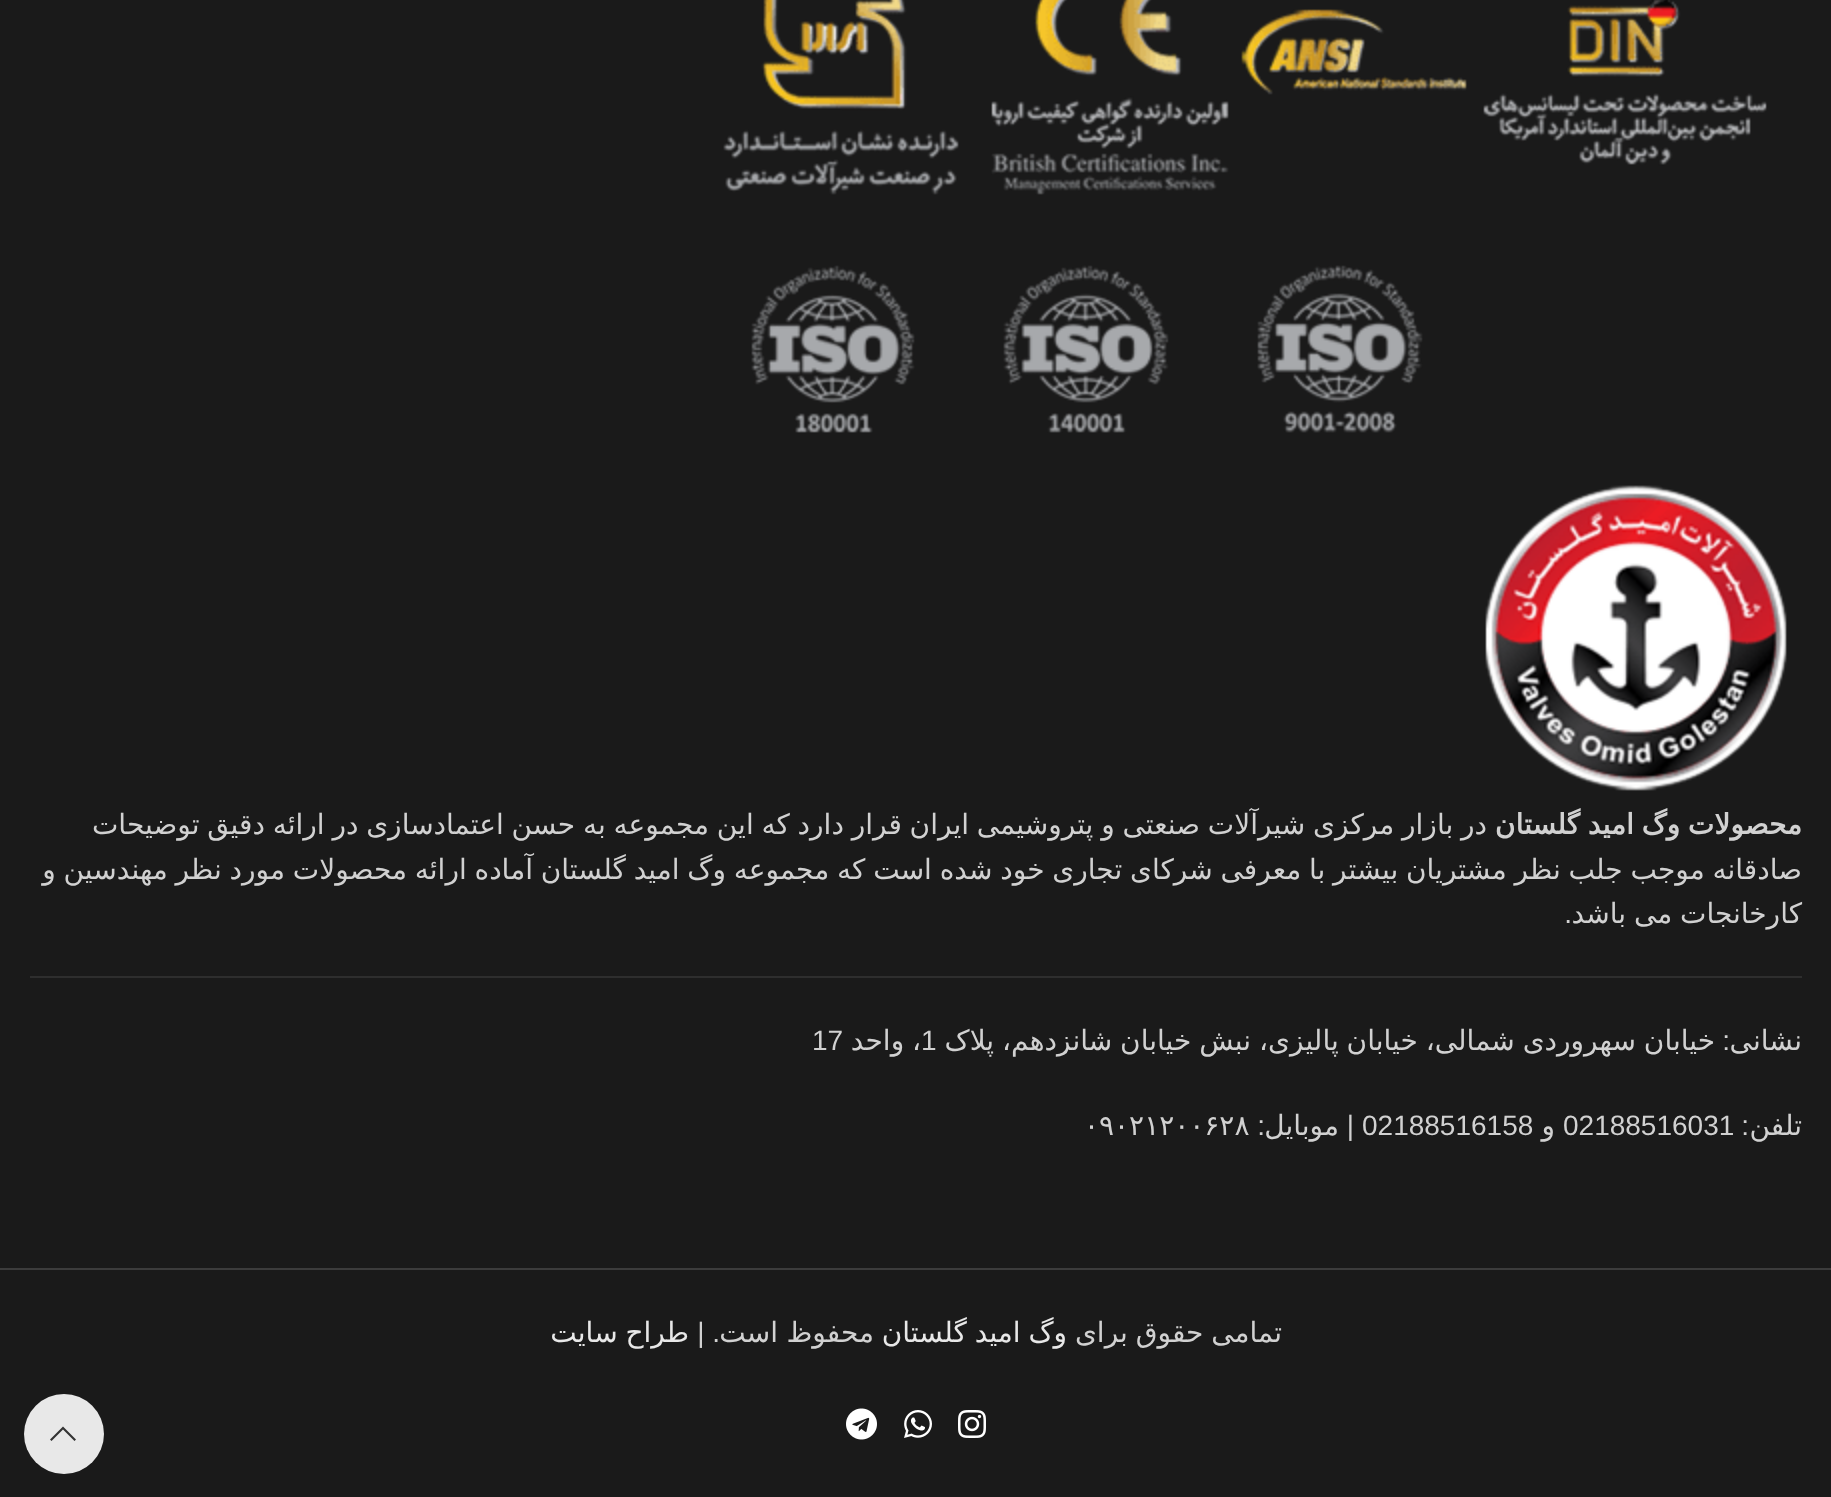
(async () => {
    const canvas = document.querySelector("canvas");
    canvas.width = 1831;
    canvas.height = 1497;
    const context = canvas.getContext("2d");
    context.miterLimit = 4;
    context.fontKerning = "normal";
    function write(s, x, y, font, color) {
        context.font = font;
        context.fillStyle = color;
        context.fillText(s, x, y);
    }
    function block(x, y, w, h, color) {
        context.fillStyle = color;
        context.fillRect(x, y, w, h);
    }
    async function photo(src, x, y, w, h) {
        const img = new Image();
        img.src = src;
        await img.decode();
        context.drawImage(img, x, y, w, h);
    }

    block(0, 0, 1831, 1497, "rgb(26, 26, 26)");
    await photo("media/1.png", 723, 0, 1044, 433);
    await photo("media/2.png", 1485, 485, 302, 306);
    context.wordSpacing = "-1.1px";
    context.direction = "rtl";
    write("محصولات وگ امید گلستان", 1802, 834, "bold 28px DejaVu Sans", "rgb(209, 209, 209)");
    write("در بازار مرکزی شیرآلات صنعتی و پتروشیمی ایران قرار دارد که این مجموعه به حسن اعتمادسازی در ارائه دقیق توضیحات", 1487, 834, "28px DejaVu Sans", "rgb(209, 209, 209)");
    write("صادقانه موجب جلب نظر مشتریان بیشتر با معرفی شرکای تجاری خود شده است که مجموعه وگ امید گلستان آماده ارائه محصولات مورد نظر مهندسین و", 1802, 879, "28px DejaVu Sans", "rgb(209, 209, 209)");
    write("کارخانجات می باشد", 1802, 923, "28px DejaVu Sans", "rgb(209, 209, 209)");
    context.wordSpacing = "0px";
    write(".", 1572, 923, "28px Liberation Sans", "rgb(209, 209, 209)");
    block(30, 976, 1772, 2, "rgb(46, 46, 46)");
    write("نشانی", 1802, 1050, "28px DejaVu Sans", "rgb(209, 209, 209)");
    write(":", 1730, 1050, "28px Liberation Sans", "rgb(209, 209, 209)");
    context.wordSpacing = "-1px";
    write("خیابان سهروردی شمالی، خیابان پالیزی، نبش خیابان شانزدهم، پلاک", 1715, 1050, "28px DejaVu Sans", "rgb(209, 209, 209)");
    context.wordSpacing = "0px";
    context.direction = "ltr";
    write("1", 921, 1050, "28px Liberation Sans", "rgb(209, 209, 209)");
    context.wordSpacing = "-1.1px";
    context.direction = "rtl";
    write("، واحد", 921, 1050, "28px DejaVu Sans", "rgb(209, 209, 209)");
    context.wordSpacing = "0px";
    context.direction = "ltr";
    write("17", 812, 1050, "28px Liberation Sans", "rgb(209, 209, 209)");
    context.direction = "rtl";
    write("تلفن", 1802, 1135, "28px DejaVu Sans", "rgb(209, 209, 209)");
    write(":", 1749, 1135, "28px Liberation Sans", "rgb(209, 209, 209)");
    context.direction = "ltr";
    write("02188516031", 1563, 1135, "28px Liberation Sans", "rgb(209, 209, 209)");
    context.direction = "rtl";
    write("و", 1555, 1135, "28px DejaVu Sans", "rgb(209, 209, 209)");
    context.direction = "ltr";
    write("02188516158", 1362, 1135, "28px Liberation Sans", "rgb(209, 209, 209)");
    context.direction = "rtl";
    write("|", 1354, 1135, "28px Liberation Sans", "rgb(209, 209, 209)");
    write("موبایل", 1339, 1135, "28px DejaVu Sans", "rgb(209, 209, 209)");
    write(":", 1265, 1135, "28px Liberation Sans", "rgb(209, 209, 209)");
    context.direction = "ltr";
    write("۰۹۰۲۱۲۰۰۶۲۸", 1084, 1135, "28px DejaVu Sans", "rgb(209, 209, 209)");
    block(0, 1268, 1831, 2, "rgb(60, 60, 60)");
    context.wordSpacing = "-1.1px";
    context.direction = "rtl";
    write("تمامی حقوق برای", 1282, 1342, "28px DejaVu Sans", "rgb(209, 209, 209)");
    write("وگ امید گلستان", 1067, 1342, "28px DejaVu Sans", "rgb(232, 232, 232)");
    context.wordSpacing = "0px";
    write("محفوظ", 874, 1342, "28px DejaVu Sans", "rgb(209, 209, 209)");
    write("است", 778, 1342, "28px DejaVu Sans", "rgb(209, 209, 209)");
    write(". |", 720, 1342, "28px Liberation Sans", "rgb(209, 209, 209)");
    context.wordSpacing = "-1.1px";
    write("طراح سایت", 689, 1342, "28px DejaVu Sans", "rgb(232, 232, 232)");
    await photo("media/3.png", 958, 1410, 28, 28);
    await photo("media/4.png", 904, 1410, 28, 28);
    await photo("media/5.png", 846, 1408, 31, 32);
    context.beginPath();
    context.arc(64, 1434, 40, 0, Math.PI * 2);
    context.fill();
    context.fillStyle = "rgb(51, 51, 51)";
    context.beginPath();
    context.moveTo(74.5, 1441);
    context.lineTo(76, 1439.5);
    context.lineTo(63, 1426.5);
    context.lineTo(50, 1439.5);
    context.lineTo(51.5, 1441);
    context.lineTo(63, 1429.5);
    context.closePath();
    context.fill();
})();
